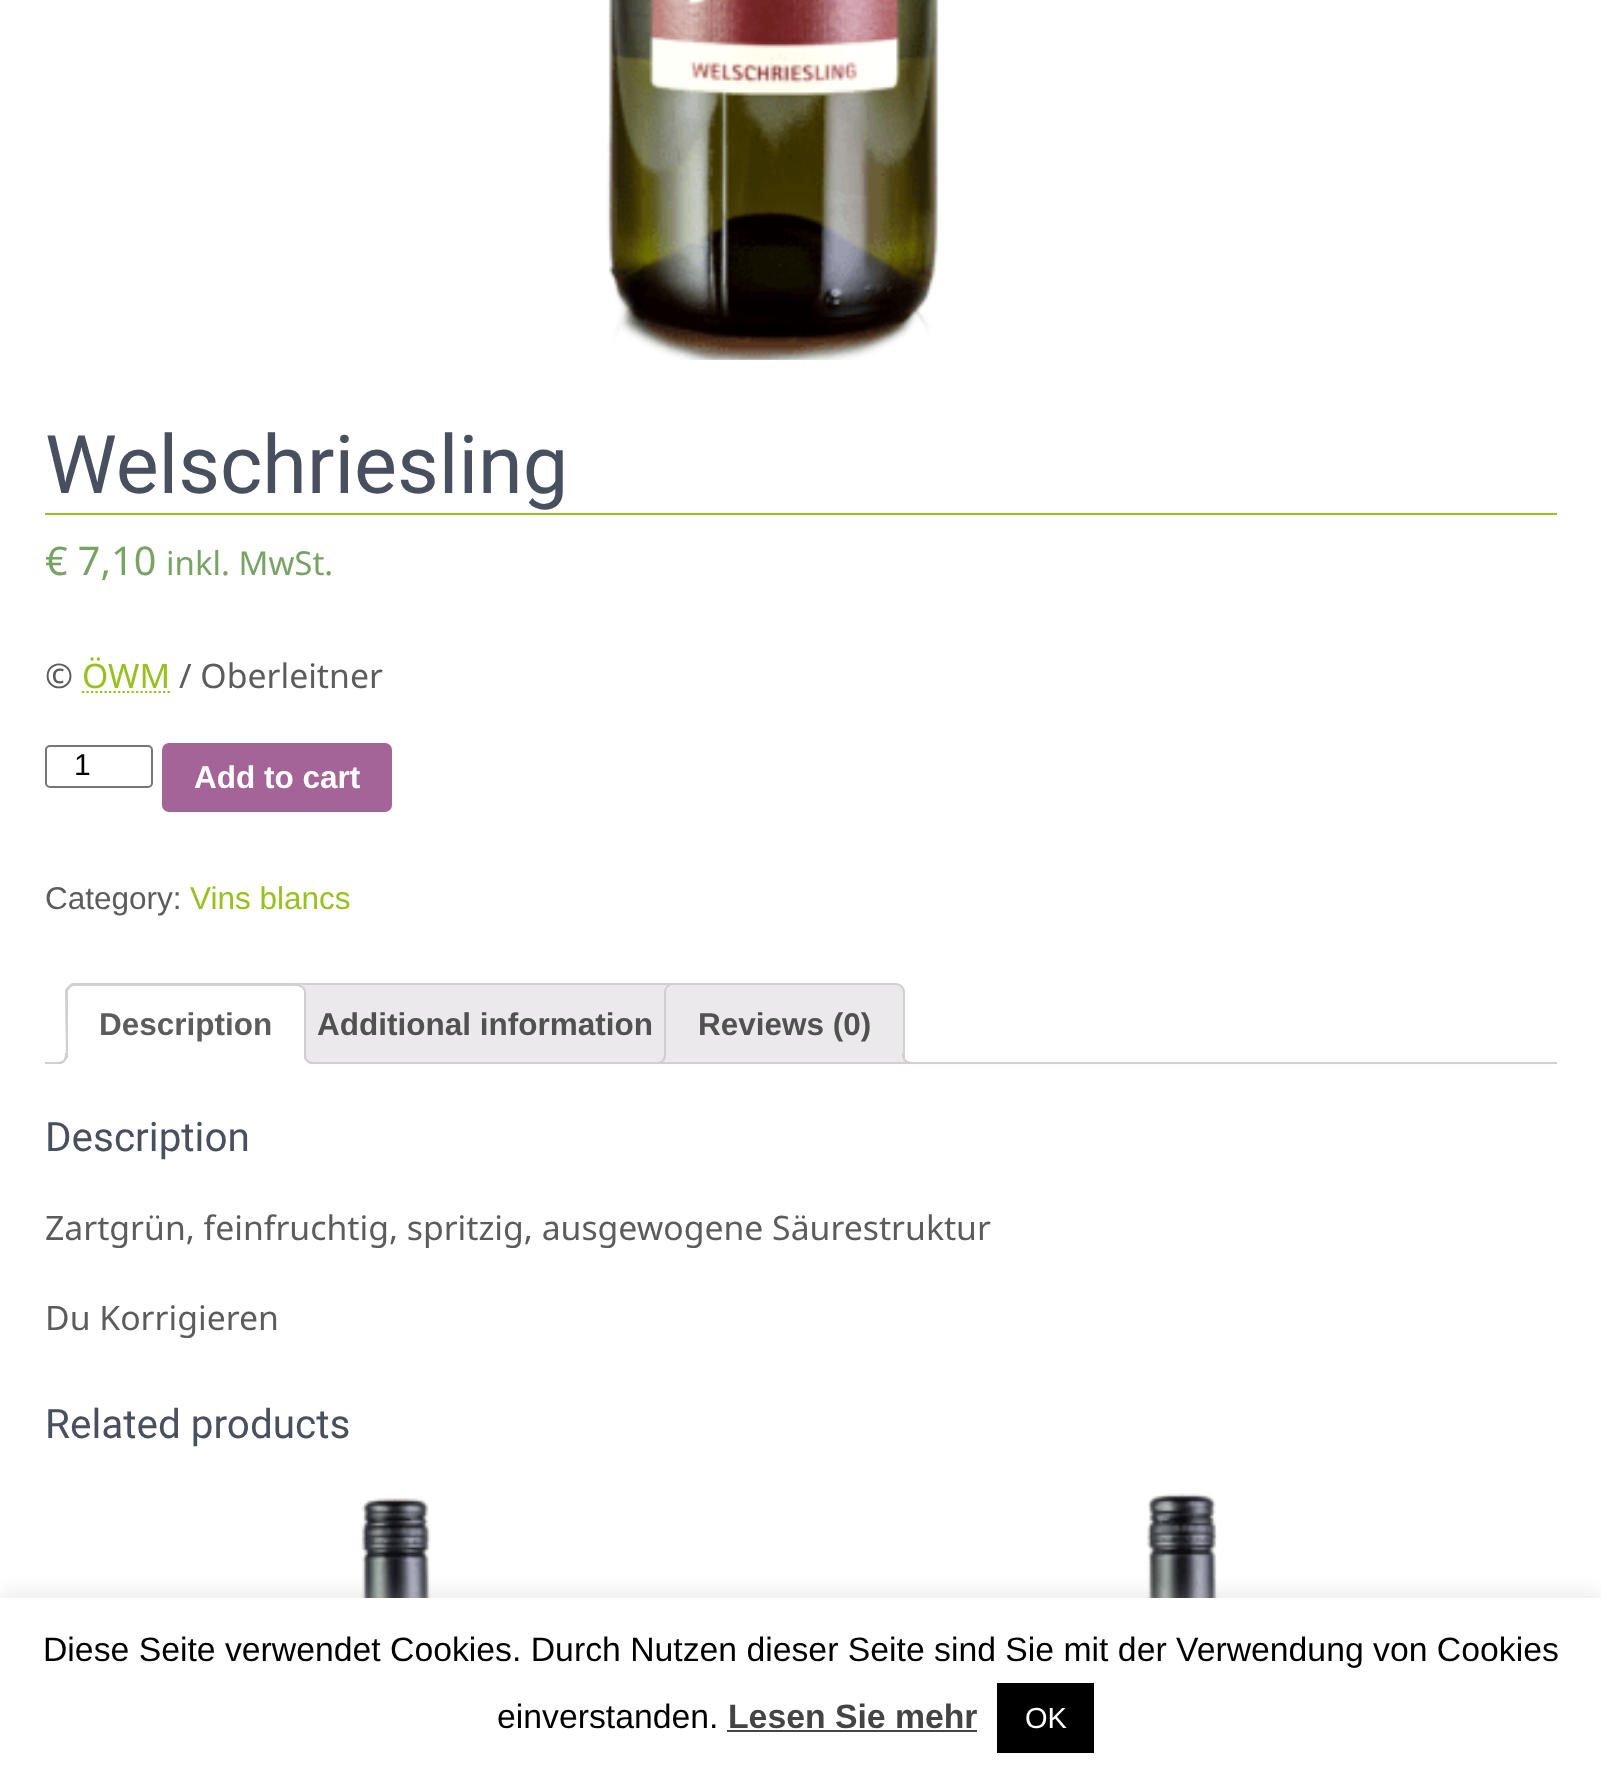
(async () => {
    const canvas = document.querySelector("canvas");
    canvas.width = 1601;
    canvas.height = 1789;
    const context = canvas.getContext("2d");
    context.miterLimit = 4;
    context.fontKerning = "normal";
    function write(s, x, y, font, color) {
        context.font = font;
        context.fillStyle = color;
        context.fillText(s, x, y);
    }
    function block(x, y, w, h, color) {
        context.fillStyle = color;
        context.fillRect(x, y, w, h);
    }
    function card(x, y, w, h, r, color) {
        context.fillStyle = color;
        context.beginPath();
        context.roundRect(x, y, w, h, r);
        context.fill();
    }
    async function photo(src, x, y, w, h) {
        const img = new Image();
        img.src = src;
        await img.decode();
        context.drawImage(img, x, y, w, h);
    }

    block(0, 0, 1601, 1789, "rgb(255, 255, 255)");
    await photo("media/1.png", 606, 0, 334, 360);
    block(45, 513, 1512, 2, "rgb(150, 193, 31)");
    write("Welschriesling", 45, 493, "81px Roboto", "rgb(72, 79, 94)");
    write("€ 7,10", 45, 575, "39.5px Noto Sans", "rgb(119, 164, 100)");
    write("inkl. MwSt.", 166, 575, "33px Noto Sans", "rgb(119, 164, 100)");
    write("©", 45, 688, "33.75px Noto Sans", "rgb(93, 92, 92)");
    write("ÖWM", 82, 688, "33.75px Noto Sans", "rgb(150, 193, 31)");
    context.beginPath();
    context.moveTo(82, 692);
    context.lineTo(170, 692);
    context.strokeStyle = "rgb(150, 193, 31)";
    context.lineWidth = 2.2;
    context.setLineDash([2.25, 2.25]);
    context.stroke();
    write("/ Oberleitner", 179, 688, "33.75px Noto Sans", "rgb(93, 92, 92)");
    context.beginPath();
    context.roundRect(46, 746, 106, 41, 4);
    context.strokeStyle = "rgb(118, 118, 118)";
    context.lineWidth = 2;
    context.setLineDash([]);
    context.stroke();
    write("1", 74, 775, "30px Liberation Sans", "rgb(0, 0, 0)");
    card(162, 743, 230, 69, 7, "rgb(164, 100, 151)");
    write("Add to cart", 194, 788, "bold 31.5px Liberation Sans", "rgb(255, 255, 255)");
    write("Category:", 45, 909, "31.5px Liberation Sans", "rgb(93, 92, 92)");
    write("Vins blancs", 190, 909, "31.5px Liberation Sans", "rgb(150, 193, 31)");
    block(302, 985, 366, 77, "rgb(235, 233, 235)");
    context.strokeStyle = "rgb(211, 206, 210)";
    context.strokeRect(285, 984, 400, 79);
    context.beginPath();
    context.roundRect(665, 984, 239, 79, [8, 8, 0, 0]);
    context.fill();
    context.stroke();
    context.save();
    context.beginPath();
    context.rect(45, 983, 1512, 81);
    context.clip();
    context.beginPath();
    context.moveTo(659, 1064);
    context.lineTo(659, 1069);
    context.bezierCurveTo(667, 1069, 671, 1067, 671, 1058);
    context.lineTo(665.5, 1058);
    context.bezierCurveTo(664.5, 1061, 662, 1063.5, 659, 1064);
    context.closePath();
    context.fill();
    context.restore();
    context.fillStyle = "rgb(211, 206, 210)";
    context.beginPath();
    context.moveTo(655, 1053);
    context.lineTo(666, 1053);
    context.bezierCurveTo(666, 1061, 663, 1064, 655, 1064);
    context.closePath();
    context.moveTo(655, 1053);
    context.lineTo(664, 1053);
    context.bezierCurveTo(664, 1060, 661.5, 1062, 655, 1062);
    context.closePath();
    context.fill("evenodd");
    context.save();
    context.beginPath();
    context.rect(45, 983, 1512, 81);
    context.clip();
    context.fillStyle = "rgb(235, 233, 235)";
    context.beginPath();
    context.moveTo(898, 1058);
    context.bezierCurveTo(898, 1065.5, 901.5, 1069, 909, 1069);
    context.lineTo(909, 1064);
    context.bezierCurveTo(906, 1063, 903.5, 1061, 902.5, 1058);
    context.closePath();
    context.fill();
    context.restore();
    context.beginPath();
    context.moveTo(902, 1053);
    context.lineTo(913.5, 1053);
    context.lineTo(913.5, 1064);
    context.lineTo(911, 1064);
    context.bezierCurveTo(906.5, 1064, 902, 1060, 902, 1055);
    context.closePath();
    context.moveTo(904.5, 1053);
    context.lineTo(913.5, 1053);
    context.lineTo(913.5, 1062);
    context.bezierCurveTo(909, 1062, 904.5, 1061, 904.5, 1055);
    context.closePath();
    context.fill("evenodd");
    block(45, 1062, 1512, 2, "rgb(211, 206, 210)");
    context.fillStyle = "rgb(255, 255, 255)";
    context.beginPath();
    context.roundRect(65, 983, 241, 81, [9, 9, 0, 0]);
    context.fill();
    context.fillStyle = "rgb(211, 206, 210)";
    context.beginPath();
    context.moveTo(74, 986);
    context.bezierCurveTo(72, 986, 71, 987, 70, 988);
    context.lineTo(68, 986);
    context.lineTo(72, 983);
    context.lineTo(299, 983);
    context.lineTo(303, 986);
    context.lineTo(302, 988);
    context.bezierCurveTo(300, 987, 299, 986, 297, 986);
    context.closePath();
    context.fill();
    context.beginPath();
    context.moveTo(306, 1064);
    context.lineTo(306, 992);
    context.bezierCurveTo(306, 990, 305, 987, 303, 986);
    context.lineTo(302, 988);
    context.lineTo(304, 991);
    context.lineTo(304, 1062);
    context.closePath();
    context.fill();
    context.fillStyle = "rgb(255, 255, 255)";
    context.beginPath();
    context.moveTo(306, 1064);
    context.lineTo(66, 1064);
    context.lineTo(68, 1062);
    context.lineTo(304, 1062);
    context.closePath();
    context.fill();
    context.fillStyle = "rgb(211, 206, 210)";
    context.beginPath();
    context.moveTo(65, 990);
    context.lineTo(68, 986);
    context.lineTo(70, 988);
    context.lineTo(68, 991);
    context.lineTo(68, 1062);
    context.lineTo(66, 1064);
    context.closePath();
    context.fill();
    write("Description", 99, 1035, "bold 31.5px Liberation Sans", "rgb(93, 92, 92)");
    context.save();
    context.beginPath();
    context.rect(45, 983, 1512, 81);
    context.clip();
    context.fillStyle = "rgb(255, 255, 255)";
    context.beginPath();
    context.moveTo(61, 1064);
    context.lineTo(61, 1069);
    context.bezierCurveTo(68.5, 1069, 72, 1065.5, 72, 1058);
    context.lineTo(67, 1058);
    context.bezierCurveTo(66, 1061, 64, 1063, 61, 1064);
    context.closePath();
    context.fill();
    context.restore();
    context.fillStyle = "rgb(211, 206, 210)";
    context.beginPath();
    context.moveTo(56, 1053);
    context.lineTo(67.5, 1053);
    context.bezierCurveTo(67.5, 1061, 64.5, 1064, 56, 1064);
    context.closePath();
    context.moveTo(56, 1053);
    context.lineTo(65, 1053);
    context.bezierCurveTo(65, 1060, 63, 1062, 56, 1062);
    context.closePath();
    context.fill("evenodd");
    context.save();
    context.beginPath();
    context.rect(45, 983, 1512, 81);
    context.clip();
    context.fillStyle = "rgb(255, 255, 255)";
    context.beginPath();
    context.moveTo(299, 1058);
    context.bezierCurveTo(299, 1067, 303, 1069, 311, 1069);
    context.lineTo(311, 1064);
    context.bezierCurveTo(308, 1063.5, 305, 1061, 304, 1058);
    context.closePath();
    context.fill();
    context.restore();
    context.beginPath();
    context.moveTo(304, 1053);
    context.lineTo(315, 1053);
    context.lineTo(315, 1064);
    context.lineTo(313, 1064);
    context.bezierCurveTo(308, 1064, 304, 1060, 304, 1055);
    context.closePath();
    context.moveTo(306, 1053);
    context.lineTo(315, 1053);
    context.lineTo(315, 1062);
    context.bezierCurveTo(310.5, 1062, 306, 1061, 306, 1055);
    context.closePath();
    context.fill("evenodd");
    write("Additional information", 317, 1035, "bold 31.5px Liberation Sans", "rgb(81, 81, 81)");
    write("Reviews (0)", 698, 1035, "bold 31.5px Liberation Sans", "rgb(81, 81, 81)");
    write("Description", 45, 1151, "40.5px Roboto", "rgb(72, 79, 94)");
    write("Zartgrün, feinfruchtig, spritzig, ausgewogene Säurestruktur", 45, 1240, "33.75px Noto Sans", "rgb(93, 92, 92)");
    write("Du Korrigieren", 45, 1330, "33.75px Noto Sans", "rgb(93, 92, 92)");
    write("Related products", 45, 1438, "40.5px Roboto", "rgb(72, 79, 94)");
    await photo("media/2.png", 318, 1498, 159, 100);
    await photo("media/3.png", 1103, 1493, 161, 105);
    context.fillStyle = "rgba(172, 171, 171, 0.3)";
    context.filter = "blur(11px)";
    context.beginPath();
    context.rect(0, 1595, 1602, 194);
    context.fill();
    context.filter = "none";
    block(0, 1598, 1601, 191, "rgb(255, 255, 255)");
    write("Diese Seite verwendet Cookies. Durch Nutzen dieser Seite sind Sie mit der Verwendung von Cookies", 43, 1661, "33.75px Liberation Sans", "rgb(0, 0, 0)");
    write("einverstanden.", 497, 1728, "33.75px Liberation Sans", "rgb(0, 0, 0)");
    write("Lesen Sie mehr", 728, 1728, "bold 33.75px Liberation Sans", "rgb(68, 68, 68)");
    block(727, 1730, 250, 2, "rgb(68, 68, 68)");
    block(997, 1683, 97, 70, "rgb(0, 0, 0)");
    write("OK", 1025, 1728, "29px Liberation Sans", "rgb(255, 255, 255)");
})();
